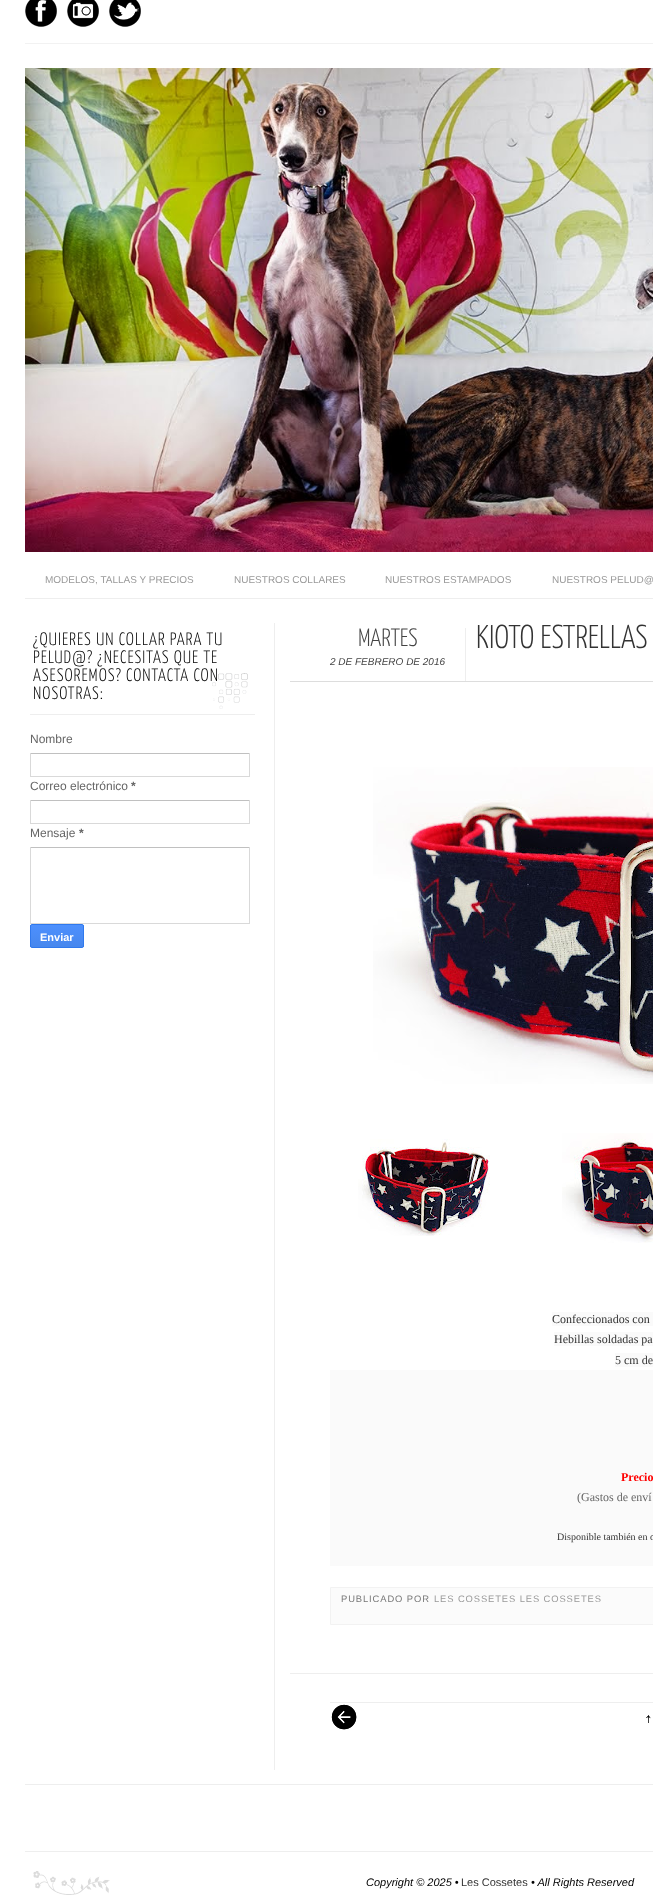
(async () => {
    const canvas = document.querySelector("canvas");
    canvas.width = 653;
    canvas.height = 1904;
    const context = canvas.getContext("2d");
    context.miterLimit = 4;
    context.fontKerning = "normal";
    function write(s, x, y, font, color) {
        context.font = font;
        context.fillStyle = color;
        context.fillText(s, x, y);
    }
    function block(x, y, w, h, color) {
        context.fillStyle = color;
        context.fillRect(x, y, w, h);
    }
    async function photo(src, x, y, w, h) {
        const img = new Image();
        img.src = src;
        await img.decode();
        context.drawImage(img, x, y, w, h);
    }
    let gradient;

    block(0, 0, 653, 1904, "rgb(255, 255, 255)");
    block(25, 43, 628, 1, "rgb(242, 242, 242)");
    await photo("media/1.png", 25, 0, 32, 27);
    await photo("media/2.png", 67, 0, 32, 27);
    await photo("media/3.png", 109, 0, 32, 27);
    await photo("media/4.png", 25, 68, 628, 484);
    block(25, 598, 628, 1, "rgb(238, 238, 238)");
    write("MODELOS, TALLAS Y PRECIOS", 45, 583, "10px Liberation Sans", "rgb(153, 153, 153)");
    write("NUESTROS COLLARES", 234, 583, "10px Liberation Sans", "rgb(153, 153, 153)");
    write("NUESTROS ESTAMPADOS", 385, 583, "10px Liberation Sans", "rgb(153, 153, 153)");
    write("NUESTROS PELUD@", 552, 583, "10px Liberation Sans", "rgb(153, 153, 153)");
    await photo("media/5.png", 212, 673, 36, 36);
    block(30, 714, 225, 1, "rgb(238, 238, 238)");
    context.letterSpacing = "1px";
    write("¿QUIERES UN COLLAR PARA TU", 33, 645, "200 18px Yanone Kaffeesatz", "rgb(0, 0, 0)");
    write("PELUD@? ¿NECESITAS QUE TE", 33, 663, "200 18px Yanone Kaffeesatz", "rgb(0, 0, 0)");
    write("ASESOREMOS? CONTACTA CON", 33, 681, "200 18px Yanone Kaffeesatz", "rgb(0, 0, 0)");
    write("NOSOTRAS:", 33, 699, "200 18px Yanone Kaffeesatz", "rgb(0, 0, 0)");
    context.letterSpacing = "0px";
    write("Nombre", 30, 743, "12px Liberation Sans", "rgb(102, 102, 102)");
    block(30, 753, 220, 1, "rgb(192, 192, 192)");
    block(249, 753, 1, 24, "rgb(217, 217, 217)");
    block(30, 776, 220, 1, "rgb(217, 217, 217)");
    block(30, 753, 1, 24, "rgb(217, 217, 217)");
    write("Correo electrónico", 30, 790, "12px Liberation Sans", "rgb(102, 102, 102)");
    write("*", 131, 790, "bold 12px Liberation Sans", "rgb(102, 102, 102)");
    block(30, 800, 220, 1, "rgb(192, 192, 192)");
    block(249, 800, 1, 24, "rgb(217, 217, 217)");
    block(30, 823, 220, 1, "rgb(217, 217, 217)");
    block(30, 800, 1, 24, "rgb(217, 217, 217)");
    write("Mensaje", 30, 837, "12px Liberation Sans", "rgb(102, 102, 102)");
    write("*", 79, 837, "bold 12px Liberation Sans", "rgb(102, 102, 102)");
    block(30, 847, 220, 1, "rgb(192, 192, 192)");
    block(249, 847, 1, 77, "rgb(217, 217, 217)");
    block(30, 923, 220, 1, "rgb(217, 217, 217)");
    block(30, 847, 1, 77, "rgb(217, 217, 217)");
    context.save();
    context.beginPath();
    context.roundRect(30, 924, 54, 24, 2);
    context.clip();
    gradient = context.createLinearGradient(57, 925, 57, 947);
    gradient.addColorStop(0, "rgb(77, 144, 254)");
    gradient.addColorStop(1, "rgb(71, 135, 237)");
    context.fillStyle = gradient;
    context.fillRect(30, 925, 54, 22);
    context.restore();
    context.beginPath();
    context.roundRect(30.5, 924.5, 53, 23, 1.5);
    context.strokeStyle = "rgb(48, 121, 237)";
    context.stroke();
    write("Enviar", 40, 941, "bold 11px Liberation Sans", "rgb(255, 255, 255)");
    block(274, 623, 1, 1147, "rgb(238, 238, 238)");
    block(290, 1673, 363, 1, "rgb(238, 238, 238)");
    block(290, 681, 363, 1, "rgb(221, 221, 221)");
    block(465, 628, 1, 53, "rgb(238, 238, 238)");
    write("MARTES", 358, 646, "200 25px Yanone Kaffeesatz", "rgb(68, 68, 68)");
    write("2 DE FEBRERO DE 2016", 330, 665, "italic 10px Liberation Sans", "rgb(68, 68, 68)");
    write("KIOTO ESTRELLAS", 476, 648, "200 33px Yanone Kaffeesatz", "rgb(51, 51, 51)");
    await photo("media/6.png", 373, 767, 280, 317);
    await photo("media/7.png", 358, 1139, 132, 97);
    await photo("media/8.png", 562, 1133, 91, 110);
    block(552, 1312, 101, 14, "rgb(250, 250, 250)");
    write("Confeccionados con", 552, 1323, "12px Liberation Serif", "rgb(51, 51, 51)");
    block(554, 1332, 99, 14, "rgb(250, 250, 250)");
    write("Hebillas soldadas pa", 554, 1343, "12px Liberation Serif", "rgb(51, 51, 51)");
    block(615, 1353, 38, 14, "rgb(250, 250, 250)");
    write("5 cm de", 615, 1364, "12px Liberation Serif", "rgb(51, 51, 51)");
    block(330, 1370, 323, 196, "rgb(250, 250, 250)");
    write("Precio", 621, 1481, "bold 12px Liberation Serif", "rgb(255, 0, 0)");
    write("(Gastos de enví", 577, 1501, "12px Liberation Serif", "rgb(102, 102, 102)");
    write("Disponible también en o", 557, 1540, "10px Liberation Serif", "rgb(51, 51, 51)");
    context.fillStyle = "rgb(251, 251, 251)";
    context.beginPath();
    context.rect(330.5, 1587.5, 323, 37);
    context.fill();
    context.strokeStyle = "rgb(242, 242, 242)";
    context.stroke();
    context.letterSpacing = "0.9px";
    write("PUBLICADO POR", 341, 1602, "9.4px Liberation Sans", "rgb(119, 119, 119)");
    write("LES COSSETES LES COSSETES", 434, 1602, "9.4px Liberation Sans", "rgb(153, 153, 153)");
    block(330, 1702, 323, 1, "rgb(238, 238, 238)");
    await photo("media/9.png", 331, 1704, 26, 26);
    await photo("media/10.png", 331, 1704, 26, 26);
    await photo("media/11.png", 646, 1715, 5, 8);
    block(25, 1784, 628, 1, "rgb(238, 238, 238)");
    await photo("media/12.png", 33, 1871, 77, 24);
    block(25, 1851, 628, 1, "rgb(238, 238, 238)");
    context.letterSpacing = "0px";
    write("Copyright © 2025 •", 366, 1886, "italic 11px Liberation Sans", "rgb(0, 0, 0)");
    write("Les Cossetes", 461, 1886, "11px Liberation Sans", "rgb(51, 51, 51)");
    write("• All Rights Reserved", 531, 1886, "italic 11px Liberation Sans", "rgb(0, 0, 0)");
})();
